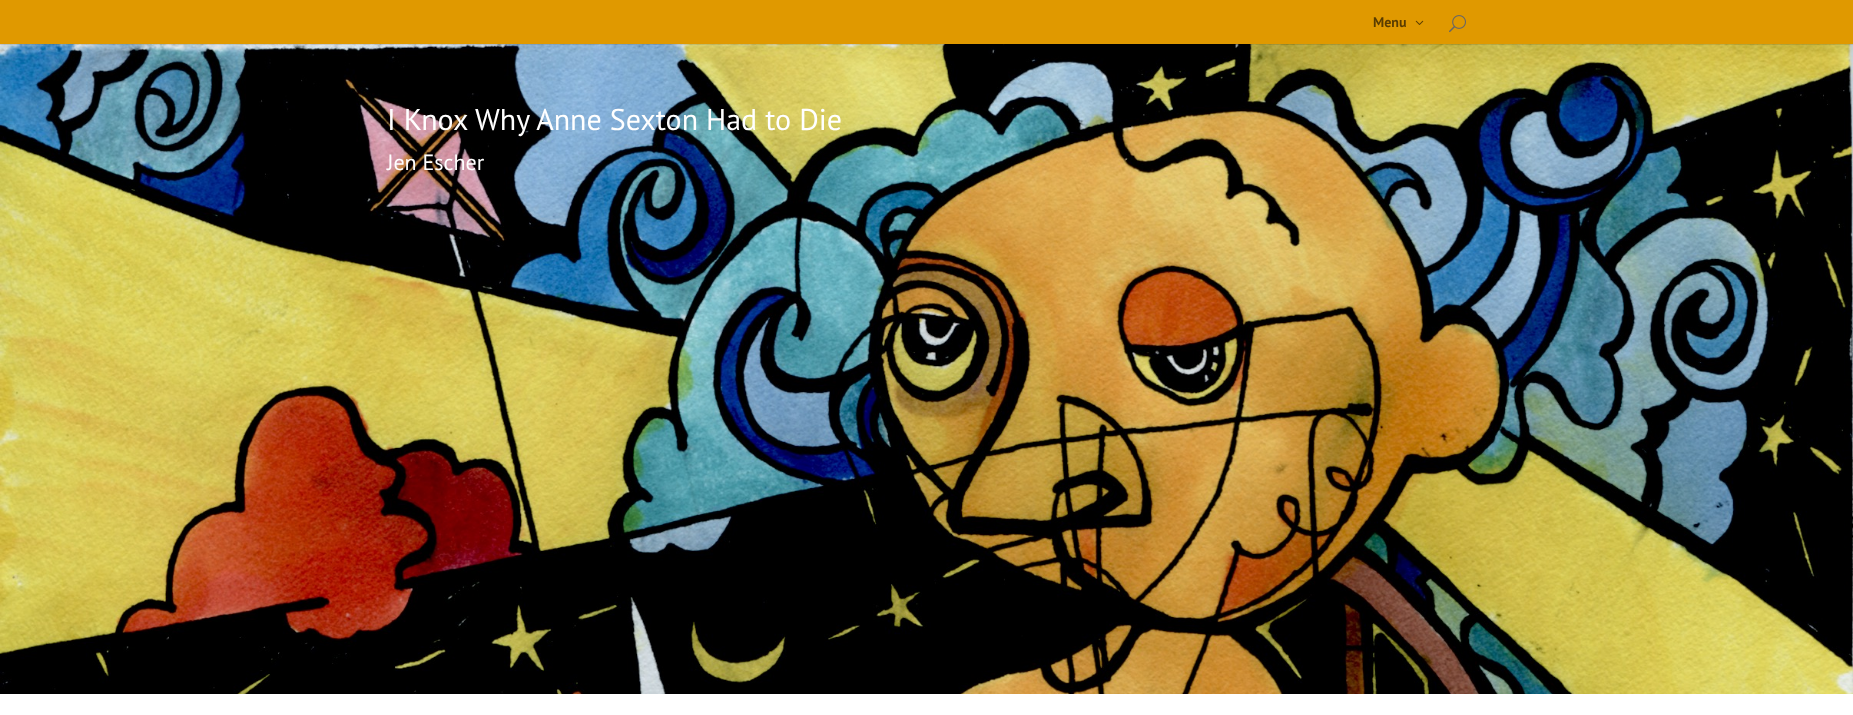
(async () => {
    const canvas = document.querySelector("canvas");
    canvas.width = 1853;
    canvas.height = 715;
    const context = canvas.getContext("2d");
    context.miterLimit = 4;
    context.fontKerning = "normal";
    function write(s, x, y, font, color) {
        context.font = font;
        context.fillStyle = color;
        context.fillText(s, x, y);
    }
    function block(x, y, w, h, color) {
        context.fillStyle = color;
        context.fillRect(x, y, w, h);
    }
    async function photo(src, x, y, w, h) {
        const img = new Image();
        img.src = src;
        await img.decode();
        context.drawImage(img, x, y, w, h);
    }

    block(0, 0, 1853, 715, "rgb(255, 255, 255)");
    await photo("media/3.png", 0, 44, 1853, 650);
    block(0, 44, 1853, 1, "rgba(0, 0, 0, 0.1)");
    block(0, 0, 1853, 44, "rgb(224, 153, 0)");
    write("Menu", 1373, 27, "bold 14px PT Sans", "rgb(90, 61, 0)");
    await photo("media/1.png", 1415, 20, 9, 5);
    await photo("media/2.png", 1449, 15, 17, 18);
    write("I Knox Why Anne Sexton Had to Die", 387, 130, "30px PT Sans", "rgb(255, 255, 255)");
    write("Jen Escher", 387, 170, "22px PT Sans", "rgb(255, 255, 255)");
})();
